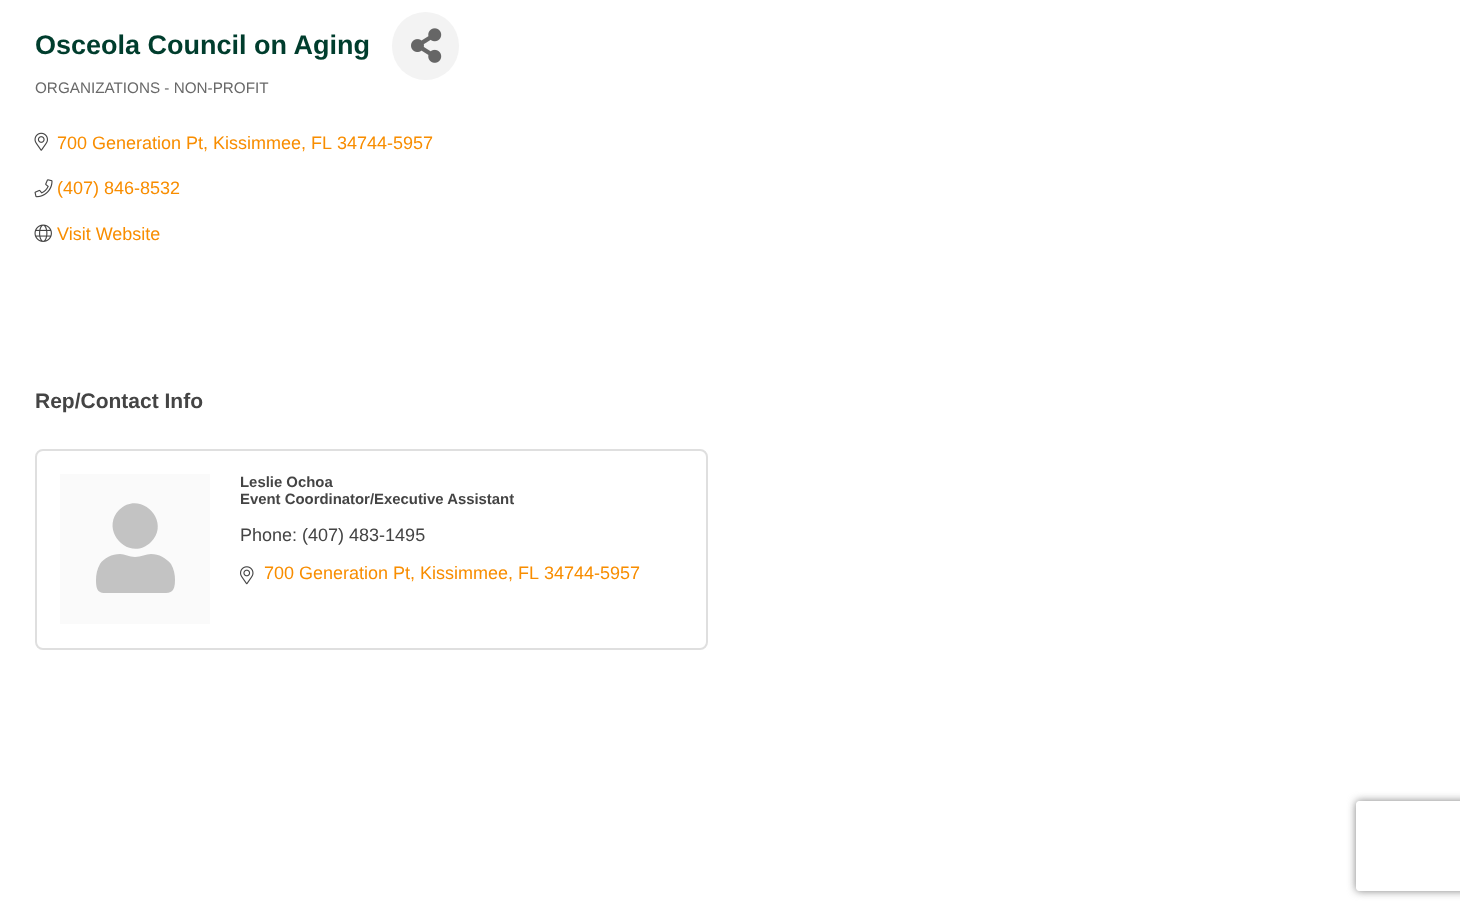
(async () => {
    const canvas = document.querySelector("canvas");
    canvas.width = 1460;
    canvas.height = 911;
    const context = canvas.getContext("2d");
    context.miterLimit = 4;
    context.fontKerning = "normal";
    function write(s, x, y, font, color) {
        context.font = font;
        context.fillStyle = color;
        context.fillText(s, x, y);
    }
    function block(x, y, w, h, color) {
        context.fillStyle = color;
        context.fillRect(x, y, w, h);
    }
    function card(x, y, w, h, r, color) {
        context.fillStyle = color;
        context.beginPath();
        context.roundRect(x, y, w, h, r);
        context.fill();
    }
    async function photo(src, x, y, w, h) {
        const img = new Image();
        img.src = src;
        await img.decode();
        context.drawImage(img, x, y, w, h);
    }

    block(0, 0, 1460, 911, "rgb(255, 255, 255)");
    write("Osceola Council on Aging", 35, 54, "bold 27px Liberation Sans", "rgb(0, 61, 45)");
    card(392, 12, 67, 68, 33.5, "rgb(243, 243, 243)");
    await photo("media/1.png", 411, 28, 31, 35);
    write("ORGANIZATIONS - NON-PROFIT", 35, 93, "15.25px Liberation Sans", "rgb(105, 105, 105)");
    await photo("media/2.png", 34, 132, 14, 19);
    write("700 Generation Pt, Kissimmee, FL", 57, 149, "18px Liberation Sans", "rgb(248, 141, 0)");
    write("34744-5957", 337, 149, "18px Liberation Sans", "rgb(248, 141, 0)");
    await photo("media/3.png", 34, 179, 19, 19);
    write("(407) 846-8532", 57, 194, "18px Liberation Sans", "rgb(248, 141, 0)");
    await photo("media/4.png", 34, 224, 18, 18);
    write("Visit Website", 57, 240, "18px Liberation Sans", "rgb(248, 141, 0)");
    write("Rep/Contact Info", 35, 408, "bold 21px Liberation Sans", "rgb(68, 68, 68)");
    context.beginPath();
    context.roundRect(36, 450, 671, 199, 7);
    context.strokeStyle = "rgb(223, 223, 223)";
    context.lineWidth = 2;
    context.stroke();
    block(60, 474, 150, 150, "rgb(250, 250, 250)");
    context.fillStyle = "rgb(195, 195, 195)";
    context.beginPath();
    context.moveTo(151, 542);
    context.bezierCurveTo(130, 563, 99, 531, 119, 510);
    context.bezierCurveTo(140, 489, 172, 521, 151, 542);
    context.closePath();
    context.moveTo(151, 554);
    context.bezierCurveTo(159, 554, 166, 558, 171, 564);
    context.bezierCurveTo(174, 569, 175, 575, 175, 580);
    context.bezierCurveTo(175, 595, 169, 593, 156, 593);
    context.lineTo(115, 593);
    context.bezierCurveTo(101, 593, 96, 595, 96, 580);
    context.bezierCurveTo(96, 575, 97, 569, 100, 564);
    context.bezierCurveTo(104, 558, 112, 554, 120, 554);
    context.bezierCurveTo(125, 554, 129, 557, 135, 557);
    context.bezierCurveTo(141, 557, 146, 554, 151, 554);
    context.closePath();
    context.fill();
    write("Leslie Ochoa", 240, 487, "bold 14.9px Liberation Sans", "rgb(68, 68, 68)");
    write("Event Coordinator/Executive Assistant", 240, 504, "bold 14.9px Liberation Sans", "rgb(68, 68, 68)");
    write("Phone: (407) 483-1495", 240, 541, "18px Liberation Sans", "rgb(68, 68, 68)");
    await photo("media/5.png", 240, 566, 14, 19);
    write("700 Generation Pt, Kissimmee, FL", 264, 579, "18px Liberation Sans", "rgb(248, 141, 0)");
    write("34744-5957", 544, 579, "18px Liberation Sans", "rgb(248, 141, 0)");
    context.save();
    context.beginPath();
    context.moveTo(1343, 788);
    context.lineTo(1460, 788);
    context.lineTo(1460, 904);
    context.lineTo(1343, 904);
    context.closePath();
    context.moveTo(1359, 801);
    context.lineTo(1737, 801);
    context.bezierCurveTo(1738.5, 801, 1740, 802.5, 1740, 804);
    context.lineTo(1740, 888);
    context.bezierCurveTo(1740, 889.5, 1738.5, 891, 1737, 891);
    context.lineTo(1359, 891);
    context.bezierCurveTo(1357.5, 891, 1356, 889.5, 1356, 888);
    context.lineTo(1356, 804);
    context.bezierCurveTo(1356, 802.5, 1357.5, 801, 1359, 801);
    context.closePath();
    context.clip("evenodd");
    context.fillStyle = "rgb(128, 128, 128)";
    context.filter = "blur(4px)";
    context.beginPath();
    context.roundRect(1356, 801, 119, 90, 3);
    context.fill();
    context.filter = "none";
    context.restore();
})();
